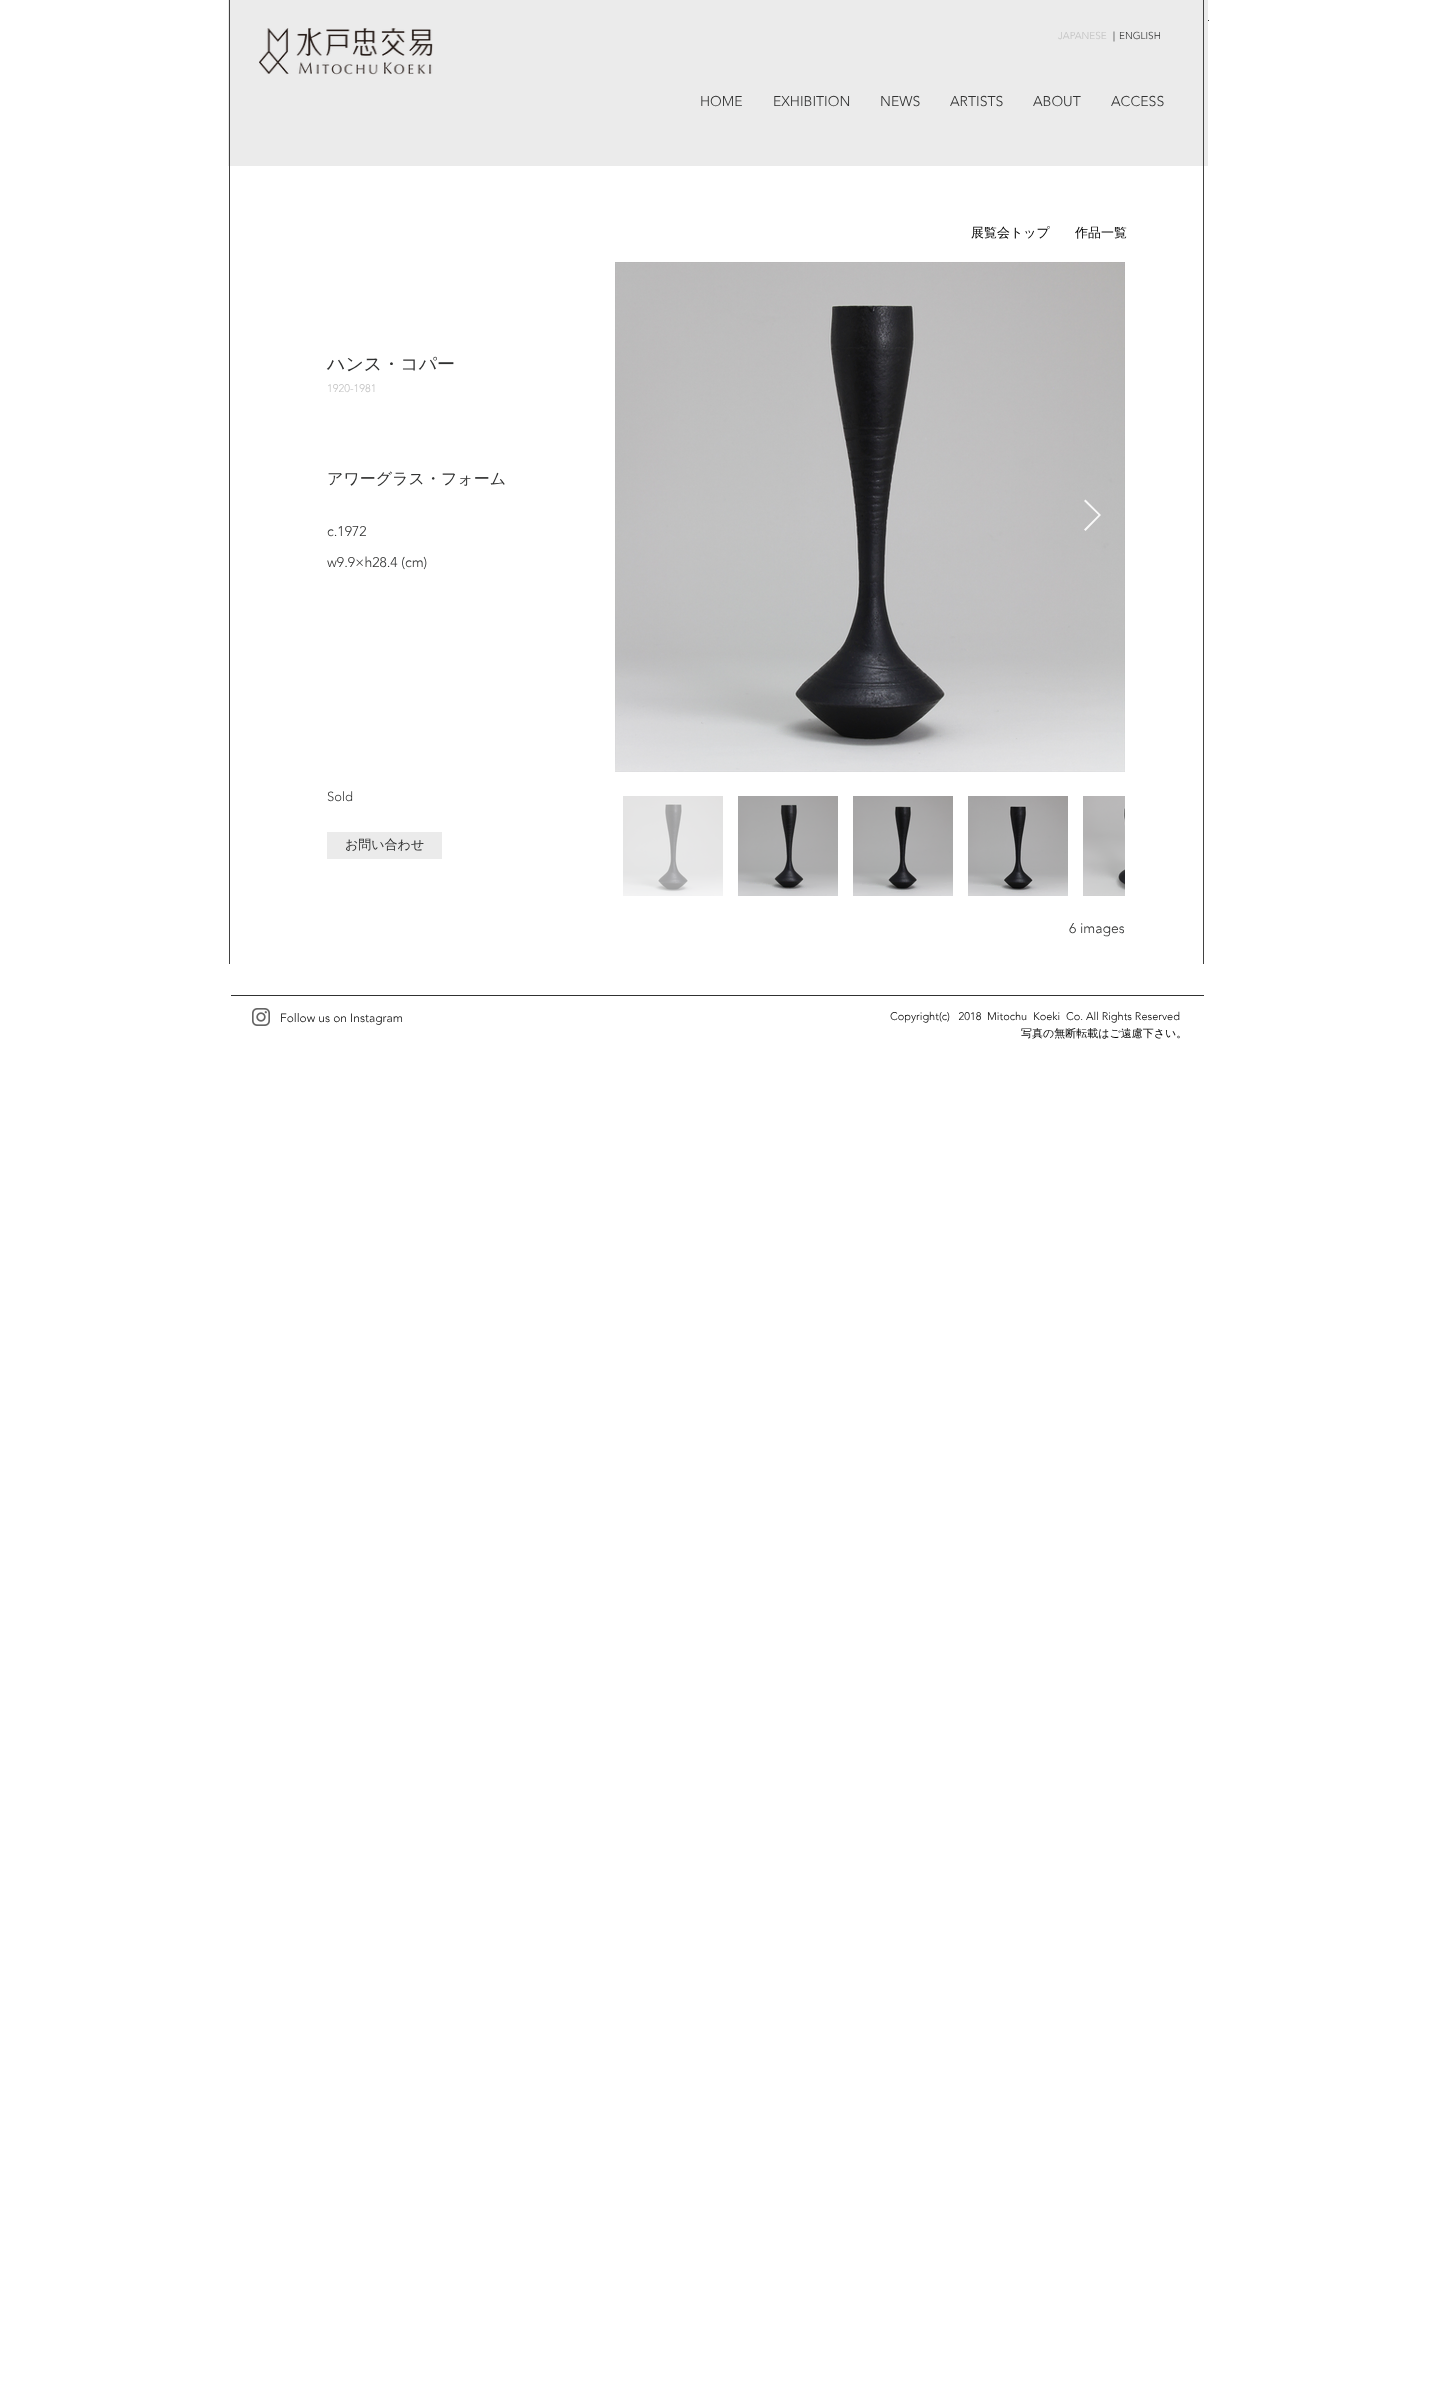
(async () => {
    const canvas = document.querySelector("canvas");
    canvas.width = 1436;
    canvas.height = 2407;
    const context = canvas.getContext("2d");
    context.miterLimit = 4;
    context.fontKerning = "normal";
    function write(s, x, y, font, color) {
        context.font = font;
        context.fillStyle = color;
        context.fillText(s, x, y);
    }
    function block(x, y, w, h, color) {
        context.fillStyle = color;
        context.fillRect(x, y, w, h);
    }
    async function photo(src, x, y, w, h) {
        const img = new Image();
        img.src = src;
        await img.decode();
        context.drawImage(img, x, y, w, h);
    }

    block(0, 0, 1436, 2407, "rgb(255, 255, 255)");
    block(228, 0, 980, 166, "rgb(235, 235, 235)");
    block(229, 0, 1, 964, "rgb(66, 66, 66)");
    block(1203, 0, 1, 964, "rgb(66, 66, 66)");
    block(1208, 20, 1, 1, "rgb(48, 49, 49)");
    await photo("media/1.png", 259, 28, 174, 47);
    write("JAPANESE", 1058, 39, "300 10px 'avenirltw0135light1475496'", "rgb(194, 194, 194)");
    write("｜", 1109, 39, "500 10px WenQuanYi Zen Hei", "rgb(48, 49, 49)");
    write("ENGLISH", 1119, 39, "300 10px 'avenirltw0135light1475496'", "rgb(48, 49, 49)");
    write("HOME", 700, 106, "300 14px 'avenirltw0135light1475496'", "rgb(48, 49, 49)");
    write("EXHIBITION", 773, 106, "300 14px 'avenirltw0135light1475496'", "rgb(48, 49, 49)");
    write("NEWS", 880, 106, "300 14px 'avenirltw0135light1475496'", "rgb(48, 49, 49)");
    write("ARTISTS", 950, 106, "300 14px 'avenirltw0135light1475496'", "rgb(48, 49, 49)");
    write("ABOUT", 1033, 106, "300 14px 'avenirltw0135light1475496'", "rgb(48, 49, 49)");
    write("ACCESS", 1111, 106, "300 14px 'avenirltw0135light1475496'", "rgb(48, 49, 49)");
    write("展覧会トップ", 971, 237, "500 13px WenQuanYi Zen Hei", "rgb(0, 0, 0)");
    write("作品一覧", 1075, 237, "500 13px WenQuanYi Zen Hei", "rgb(0, 0, 0)");
    write("ハンス・コパー", 327, 370, "500 18px WenQuanYi Zen Hei", "rgb(48, 49, 49)");
    await photo("media/2.png", 615, 262, 510, 510);
    context.fillStyle = "rgba(255, 255, 255, 0.9)";
    context.beginPath();
    context.moveTo(1084, 501);
    context.lineTo(1085.5, 499.5);
    context.lineTo(1101, 515);
    context.lineTo(1085.5, 531);
    context.lineTo(1084, 529.5);
    context.lineTo(1098.5, 515);
    context.closePath();
    context.fill();
    await photo("media/3.png", 623, 796, 100, 100);
    await photo("media/4.png", 738, 796, 100, 100);
    await photo("media/5.png", 853, 796, 100, 100);
    await photo("media/6.png", 968, 796, 100, 100);
    await photo("media/7.png", 1083, 796, 42, 100);
    write("1920-1981", 327, 392, "300 11px 'avenirltw0135light1475496'", "rgb(194, 194, 194)");
    write("アワーグラス・フォーム", 327, 484, "500 16px WenQuanYi Zen Hei", "rgb(48, 49, 49)");
    write("c.1972", 327, 536, "300 14px 'avenirltw0135light1475496'", "rgb(48, 49, 49)");
    write("w9.9×h28.4 (cm)", 327, 567, "300 14px 'avenirltw0135light1475496'", "rgb(48, 49, 49)");
    write("Sold", 327, 801, "300 13px 'avenirltw0135light1475496'", "rgb(48, 49, 49)");
    block(327, 832, 115, 27, "rgb(235, 235, 235)");
    write("お問い合わせ", 345, 849, "500 13px WenQuanYi Zen Hei", "rgb(48, 49, 49)");
    write("6 images", 1069, 933, "300 14px 'avenirltw0135light1475496'", "rgb(48, 49, 49)");
    block(231, 995, 973, 1, "rgb(48, 49, 49)");
    await photo("media/8.png", 252, 1008, 18, 18);
    write("Follow us on Instagram", 280, 1022, "300 12px 'avenirltw0135light1475496'", "rgb(0, 0, 0)");
    write("Copyright(c)   2018  Mitochu  Koeki  Co. All Rights Reserved", 890, 1020, "300 11px 'avenirltw0135light1475496'", "rgb(0, 0, 0)");
    write("写真の無断転載はご遠慮下さい。", 1021, 1037, "500 11px WenQuanYi Zen Hei", "rgb(0, 0, 0)");
})();
